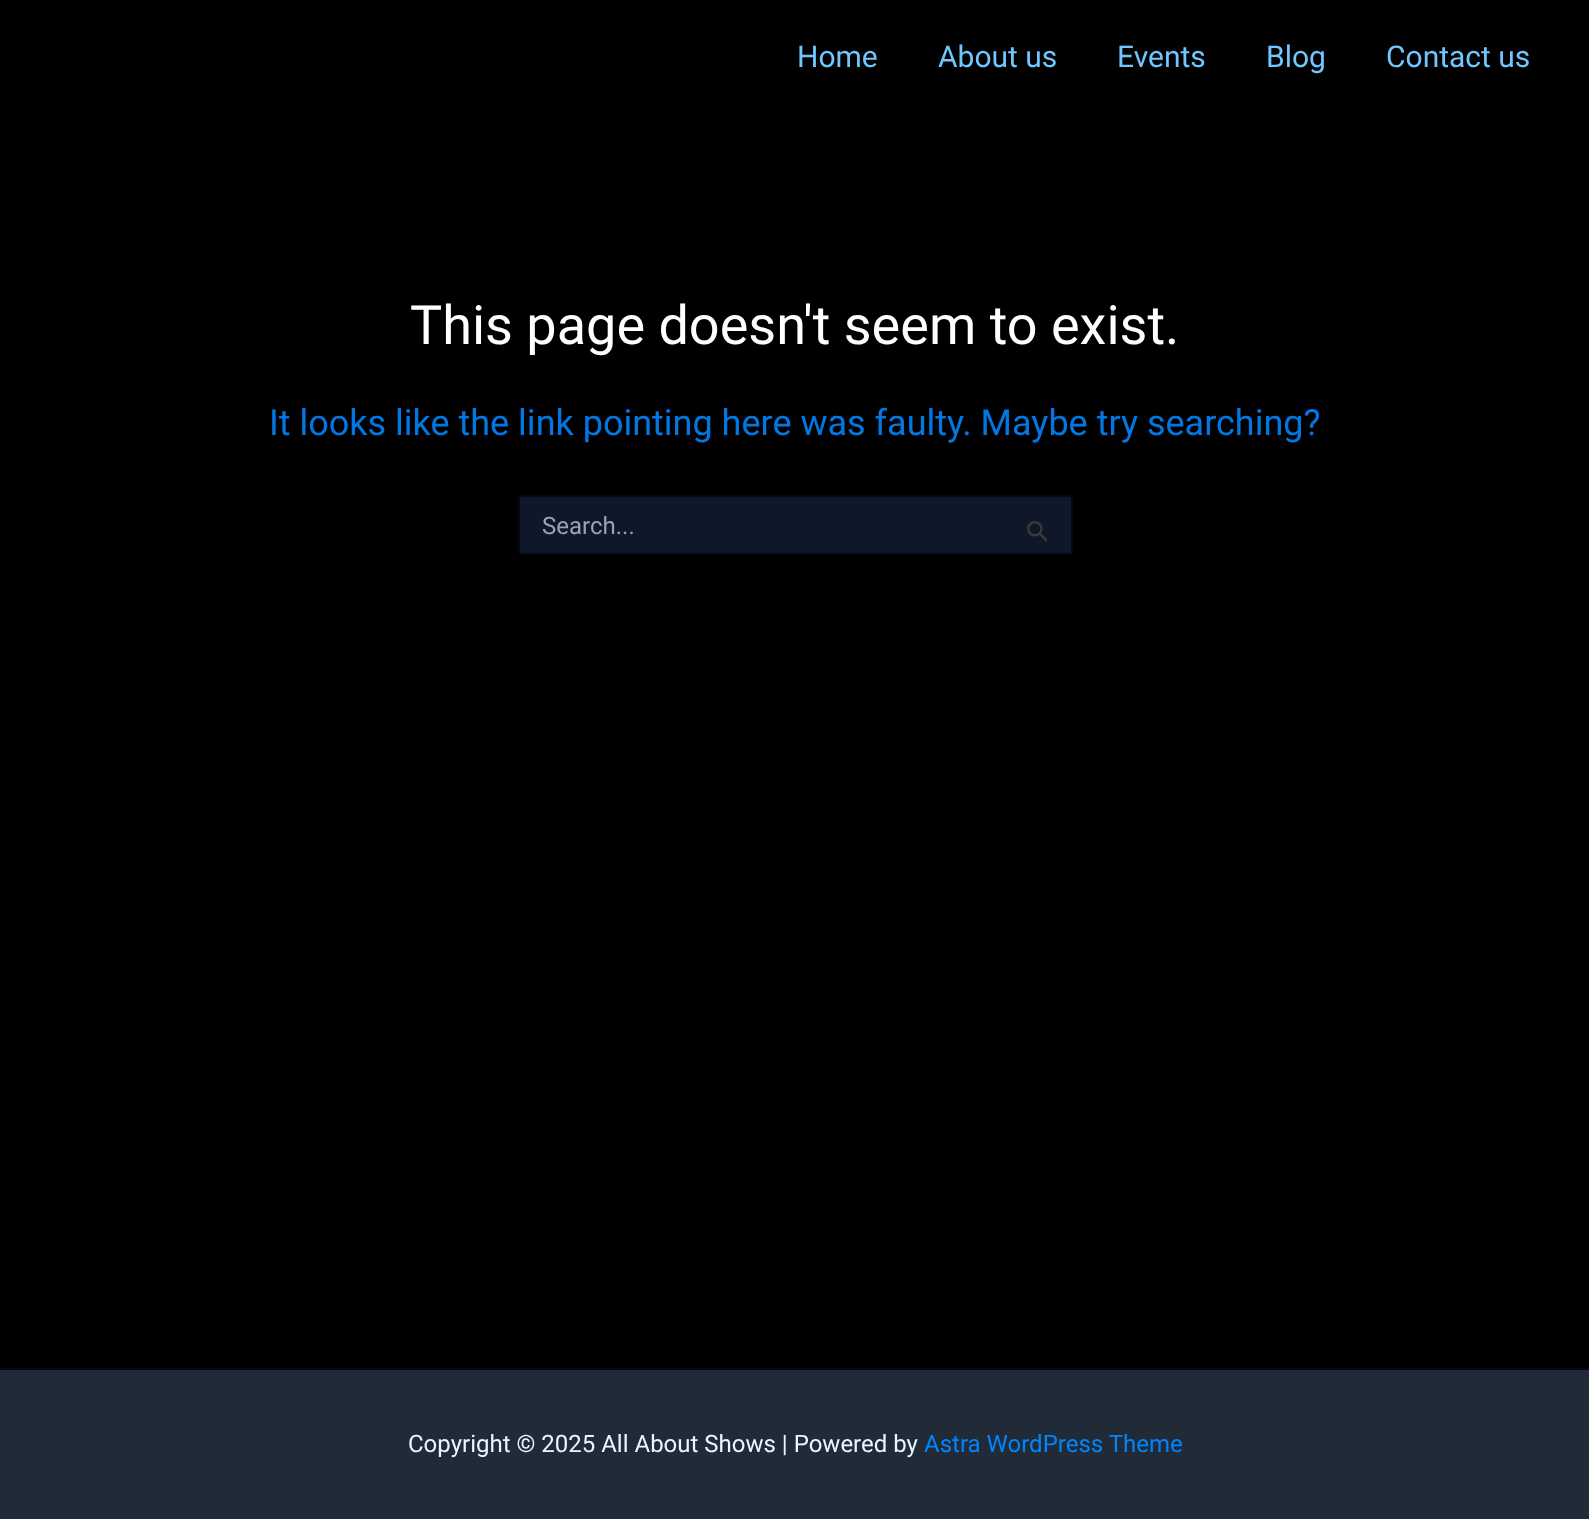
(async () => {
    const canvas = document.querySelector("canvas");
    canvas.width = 1589;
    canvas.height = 1519;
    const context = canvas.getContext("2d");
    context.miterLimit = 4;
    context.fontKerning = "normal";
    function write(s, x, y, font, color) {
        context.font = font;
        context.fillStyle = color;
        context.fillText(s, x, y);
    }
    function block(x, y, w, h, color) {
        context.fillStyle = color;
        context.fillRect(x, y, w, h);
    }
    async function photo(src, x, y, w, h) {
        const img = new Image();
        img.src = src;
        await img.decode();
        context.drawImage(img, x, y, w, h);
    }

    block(0, 0, 1589, 1519, "rgb(0, 0, 0)");
    write("Home", 797, 67, "30px Roboto", "rgb(112, 199, 255)");
    write("About us", 938, 67, "30px Roboto", "rgb(112, 199, 255)");
    write("Events", 1117, 67, "30px Roboto", "rgb(112, 199, 255)");
    write("Blog", 1266, 67, "30px Roboto", "rgb(112, 199, 255)");
    write("Contact us", 1386, 67, "30px Roboto", "rgb(112, 199, 255)");
    write("This page doesn't seem to exist.", 410, 344, "54px Roboto", "rgb(255, 255, 255)");
    write("It looks like the link pointing here was faulty. Maybe try searching?", 269, 435, "36px Roboto", "rgb(1, 119, 227)");
    context.fillStyle = "rgb(15, 23, 42)";
    context.beginPath();
    context.roundRect(519, 496, 553, 58, 2);
    context.fill();
    context.strokeStyle = "rgb(7, 6, 20)";
    context.lineWidth = 2;
    context.stroke();
    write("Search...", 542, 534, "24px Roboto", "rgb(156, 163, 175)");
    await photo("media/1.png", 1027, 521, 20, 21);
    block(0, 1370, 1589, 149, "rgb(33, 42, 55)");
    block(0, 1368, 1589, 2, "rgb(7, 6, 20)");
    write("Copyright © 2025 All About Shows | Powered by", 408, 1452, "24px Roboto", "rgb(231, 246, 255)");
    write("Astra WordPress Theme", 924, 1452, "24px Roboto", "rgb(0, 133, 255)");
})();
